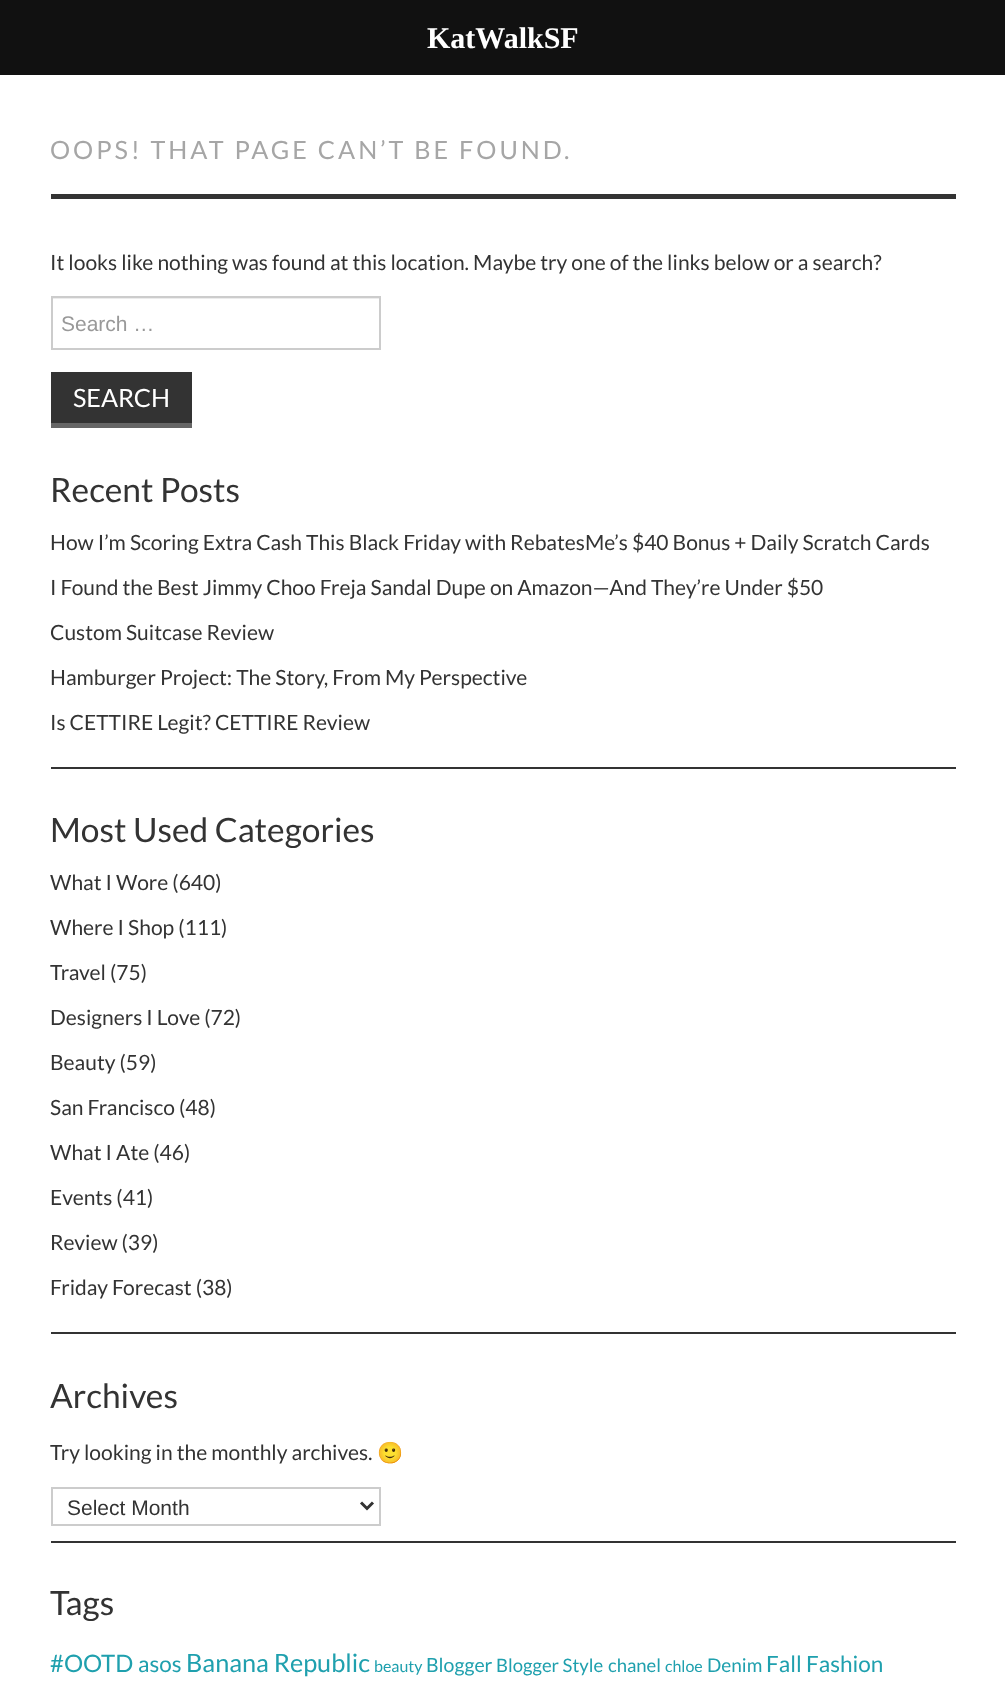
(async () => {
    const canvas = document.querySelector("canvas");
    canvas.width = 1005;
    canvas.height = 1687;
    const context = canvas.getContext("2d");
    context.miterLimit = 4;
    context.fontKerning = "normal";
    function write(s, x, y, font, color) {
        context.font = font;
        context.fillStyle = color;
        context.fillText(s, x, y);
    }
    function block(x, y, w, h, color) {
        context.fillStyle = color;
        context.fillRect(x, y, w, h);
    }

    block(0, 0, 1005, 1687, "rgb(255, 255, 255)");
    block(0, 0, 1005, 75, "rgb(17, 17, 17)");
    write("KatWalkSF", 427, 48, "bold 30px Liberation Serif", "rgb(255, 255, 255)");
    block(51, 194, 905, 5, "rgb(51, 51, 51)");
    context.letterSpacing = "3px";
    write("OOPS! THAT PAGE CAN’T BE FOUND.", 50, 159, "25.2px Lato", "rgb(166, 166, 166)");
    context.letterSpacing = "0px";
    write("It looks like nothing was found at this location. Maybe try one of the links below or a search?", 50, 270, "21px Lato", "rgb(51, 51, 51)");
    block(53, 298, 327, 1, "rgb(236, 236, 236)");
    context.strokeStyle = "rgb(204, 204, 204)";
    context.lineWidth = 2;
    context.strokeRect(52, 297, 328, 52);
    write("Search …", 61, 331, "21px Liberation Sans", "rgb(153, 153, 153)");
    block(51, 372, 141, 51, "rgb(51, 51, 51)");
    block(51, 423, 141, 5, "rgb(102, 102, 102)");
    write("SEARCH", 73, 407, "25.2px Lato", "rgb(255, 255, 255)");
    block(51, 767, 905, 2, "rgb(51, 51, 51)");
    write("Recent Posts", 50, 502, "33.5px Lato", "rgb(51, 51, 51)");
    write("How I’m Scoring Extra Cash This Black Friday with RebatesMe’s $40 Bonus + Daily Scratch Cards", 50, 550, "21px Lato", "rgb(51, 51, 51)");
    write("I Found the Best Jimmy Choo Freja Sandal Dupe on Amazon—And They’re Under $50", 50, 595, "21px Lato", "rgb(51, 51, 51)");
    write("Custom Suitcase Review", 50, 640, "21px Lato", "rgb(51, 51, 51)");
    write("Hamburger Project: The Story, From My Perspective", 50, 685, "21px Lato", "rgb(51, 51, 51)");
    write("Is CETTIRE Legit? CETTIRE Review", 50, 730, "21px Lato", "rgb(51, 51, 51)");
    block(51, 1332, 905, 2, "rgb(51, 51, 51)");
    write("Most Used Categories", 50, 842, "33.5px Lato", "rgb(51, 51, 51)");
    write("What I Wore (640)", 50, 890, "21px Lato", "rgb(51, 51, 51)");
    write("Where I Shop (111)", 50, 935, "21px Lato", "rgb(51, 51, 51)");
    write("Travel (75)", 50, 980, "21px Lato", "rgb(51, 51, 51)");
    write("Designers I Love (72)", 50, 1025, "21px Lato", "rgb(51, 51, 51)");
    write("Beauty (59)", 50, 1070, "21px Lato", "rgb(51, 51, 51)");
    write("San Francisco (48)", 50, 1115, "21px Lato", "rgb(51, 51, 51)");
    write("What I Ate (46)", 50, 1160, "21px Lato", "rgb(51, 51, 51)");
    write("Events (41)", 50, 1205, "21px Lato", "rgb(51, 51, 51)");
    write("Review (39)", 50, 1250, "21px Lato", "rgb(51, 51, 51)");
    write("Friday Forecast (38)", 50, 1295, "21px Lato", "rgb(51, 51, 51)");
    block(51, 1541, 905, 2, "rgb(51, 51, 51)");
    write("Archives", 50, 1408, "33.5px Lato", "rgb(51, 51, 51)");
    write("Try looking in the monthly archives.", 50, 1460, "21px Lato", "rgb(51, 51, 51)");
    write("🙂", 377, 1460, "21px Noto Color Emoji", "rgb(51, 51, 51)");
    context.strokeRect(52, 1488, 328, 37);
    context.beginPath();
    context.moveTo(361, 1502.5);
    context.lineTo(367, 1508.5);
    context.lineTo(373, 1502.5);
    context.strokeStyle = "rgb(51, 51, 51)";
    context.lineWidth = 3;
    context.stroke();
    write("Select Month", 67, 1515, "21px Liberation Sans", "rgb(51, 51, 51)");
    write("Tags", 50, 1615, "33.5px Lato", "rgb(51, 51, 51)");
    write("#OOTD", 50, 1672, "24px Lato", "rgb(31, 160, 174)");
    write("asos", 138, 1672, "22.5px Lato", "rgb(31, 160, 174)");
    write("Banana Republic", 186, 1672, "25.25px Lato", "rgb(31, 160, 174)");
    write("beauty", 374, 1672, "16px Lato", "rgb(31, 160, 174)");
    write("Blogger", 426, 1672, "19.5px Lato", "rgb(31, 160, 174)");
    write("Blogger Style", 496, 1672, "18.5px Lato", "rgb(31, 160, 174)");
    write("chanel", 608, 1672, "18.5px Lato", "rgb(31, 160, 174)");
    write("chloe", 665, 1672, "16px Lato", "rgb(31, 160, 174)");
    write("Denim", 707, 1672, "19px Lato", "rgb(31, 160, 174)");
    write("Fall Fashion", 766, 1672, "22.5px Lato", "rgb(31, 160, 174)");
})();
